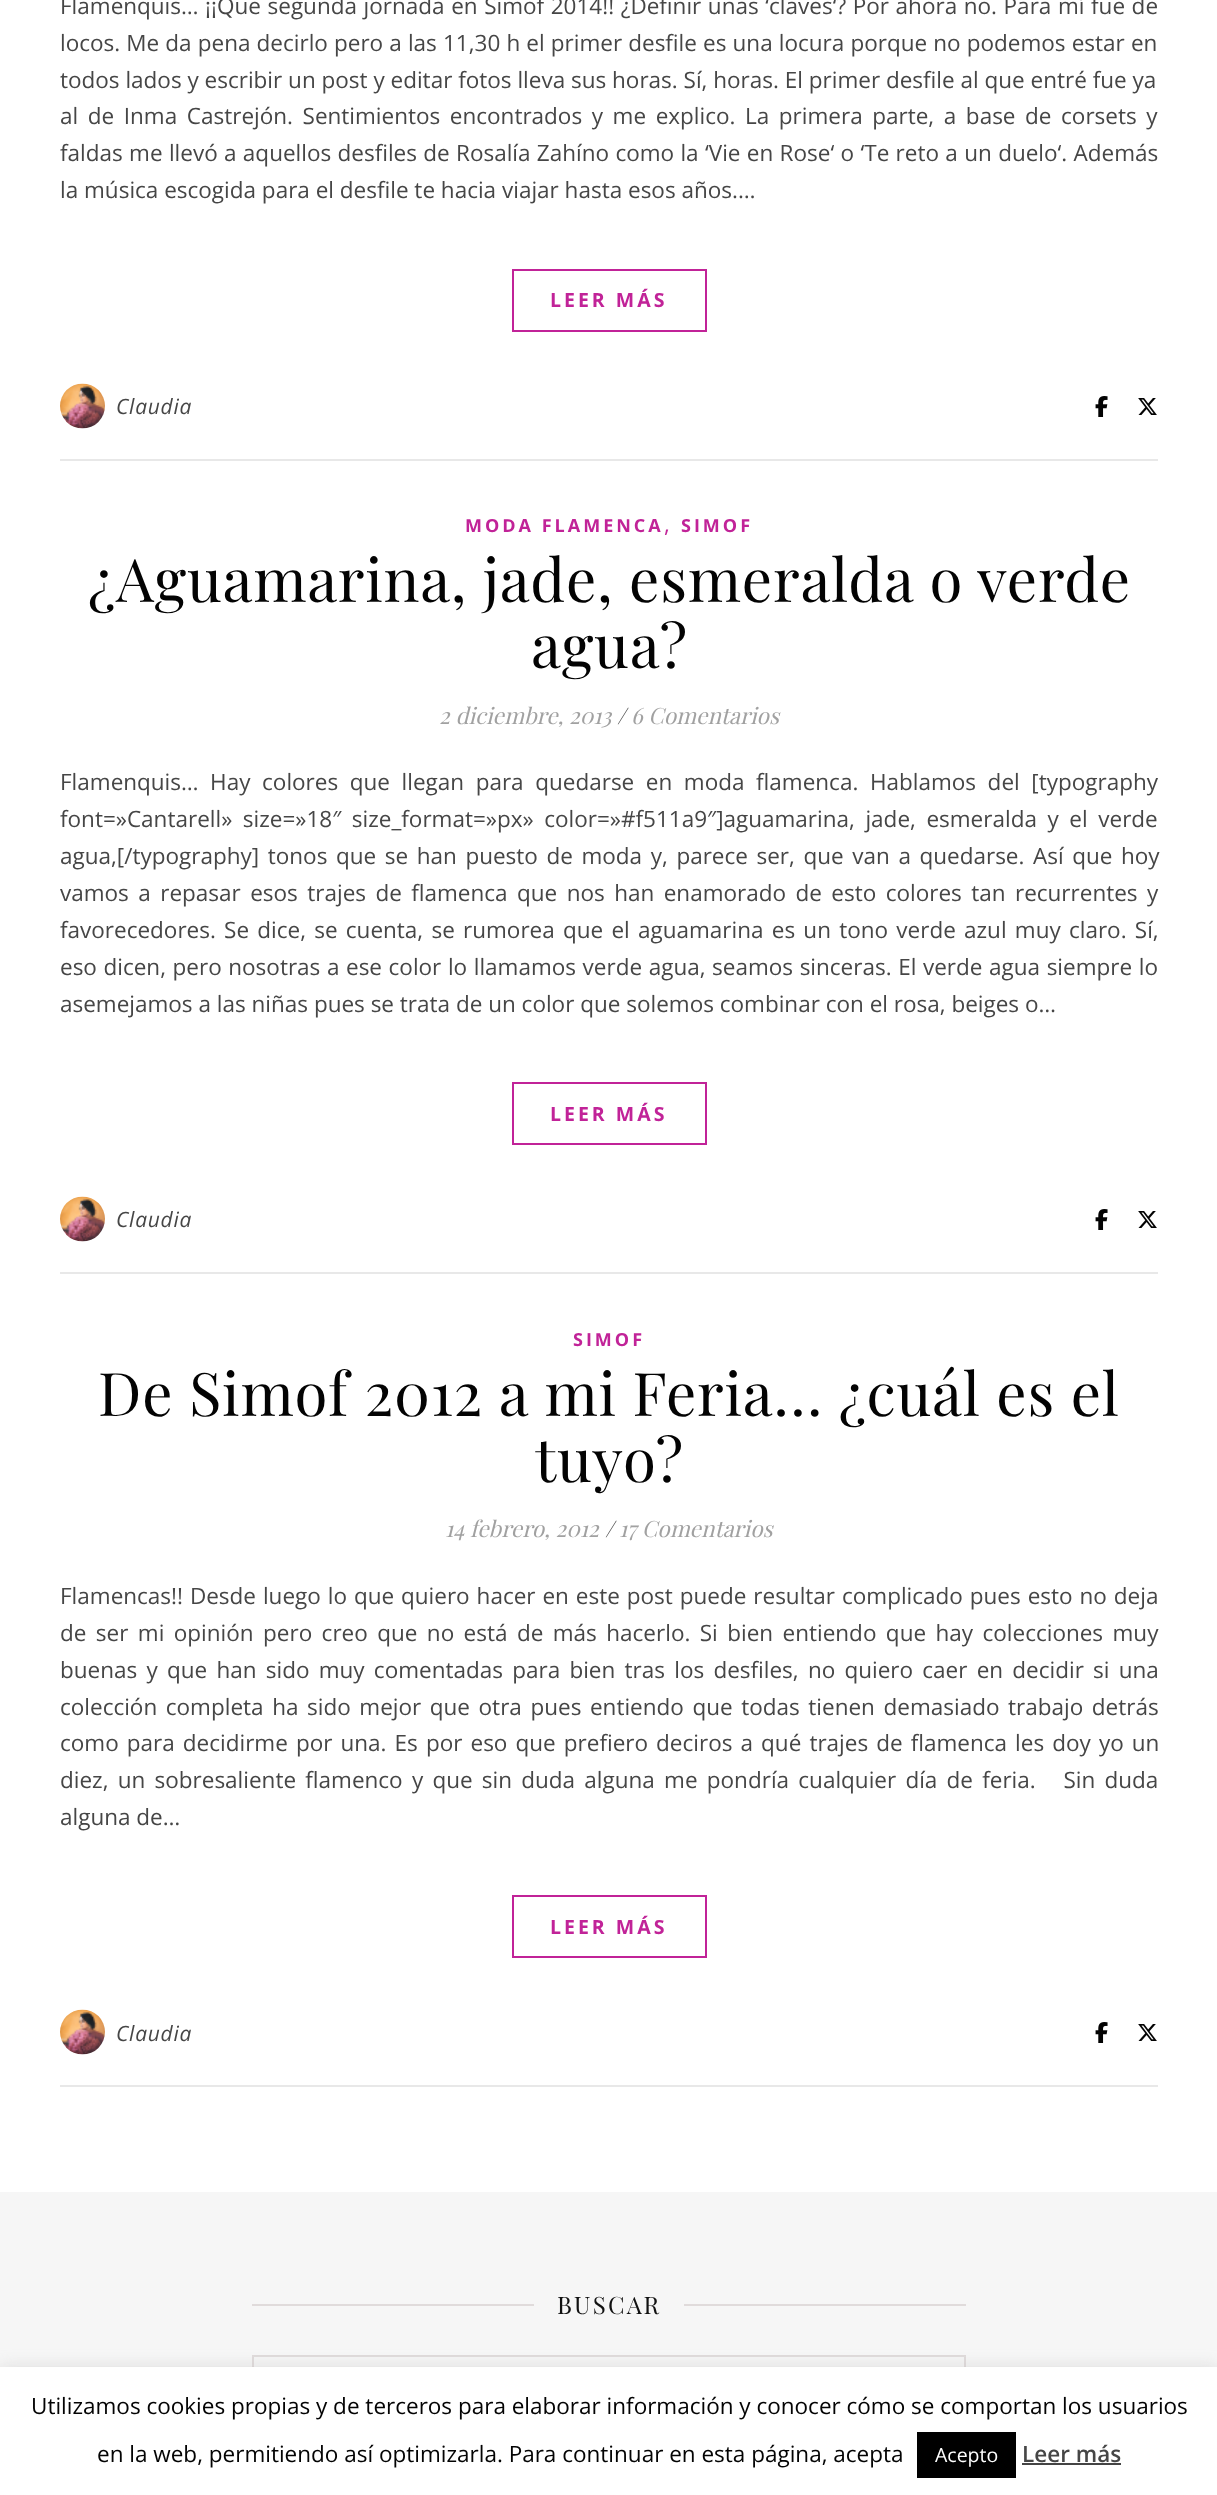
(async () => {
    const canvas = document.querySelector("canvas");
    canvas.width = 1217;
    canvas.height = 2495;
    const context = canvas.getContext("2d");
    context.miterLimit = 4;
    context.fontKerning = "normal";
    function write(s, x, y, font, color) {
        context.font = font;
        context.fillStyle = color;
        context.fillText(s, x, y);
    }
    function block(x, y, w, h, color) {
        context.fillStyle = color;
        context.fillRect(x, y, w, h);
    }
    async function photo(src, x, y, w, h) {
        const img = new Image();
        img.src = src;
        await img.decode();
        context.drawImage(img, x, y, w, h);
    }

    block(0, 0, 1217, 2495, "rgb(255, 255, 255)");
    context.wordSpacing = "0.75px";
    write("Flamenquis… ¡¡Que segunda jornada en Simof 2014!! ¿Definir unas ‘claves‘? Por ahora no. Para mí fue de", 60, 14, "22.5px Open Sans", "rgb(70, 70, 70)");
    context.wordSpacing = "0.3px";
    write("locos. Me da pena decirlo pero a las 11,30 h el primer desfile es una locura porque no podemos estar en", 60, 51, "22.5px Open Sans", "rgb(70, 70, 70)");
    context.wordSpacing = "0px";
    write("todos lados y escribir un post y editar fotos lleva sus horas. Sí, horas. El primer desfile al que entré fue ya", 60, 88, "22.5px Open Sans", "rgb(70, 70, 70)");
    context.wordSpacing = "3.75px";
    write("al de Inma Castrejón. Sentimientos encontrados y me explico. La primera parte, a base de corsets y", 60, 124, "22.5px Open Sans", "rgb(70, 70, 70)");
    context.wordSpacing = "0.5px";
    write("faldas me llevó a aquellos desfiles de Rosalía Zahíno como la ‘Vie en Rose‘ o ‘Te reto a un duelo‘. Además", 60, 161, "22.5px Open Sans", "rgb(70, 70, 70)");
    context.wordSpacing = "0px";
    write("la música escogida para el desfile te hacia viajar hasta esos años.…", 60, 198, "22.5px Open Sans", "rgb(70, 70, 70)");
    context.strokeStyle = "rgb(193, 35, 152)";
    context.lineWidth = 2;
    context.strokeRect(513, 270, 193, 61);
    context.letterSpacing = "3px";
    write("LEER MÁS", 550, 307, "bold 19.5px Open Sans", "rgb(193, 35, 152)");
    block(60, 459, 1098, 2, "rgb(232, 232, 232)");
    await photo("media/1.png", 60, 383, 45, 46);
    context.letterSpacing = "0.75px";
    write("Claudia", 116, 414, "italic 21px Open Sans", "rgb(70, 70, 70)");
    await photo("media/2.png", 1095, 396, 13, 21);
    await photo("media/3.png", 1138, 398, 19, 17);
    context.letterSpacing = "3px";
    write("MODA FLAMENCA", 465, 532, "bold 18px Open Sans", "rgb(193, 35, 152)");
    context.letterSpacing = "0px";
    write(",", 664, 532, "22.5px Open Sans", "rgb(193, 35, 152)");
    context.letterSpacing = "3px";
    write("SIMOF", 681, 532, "bold 18px Open Sans", "rgb(193, 35, 152)");
    context.letterSpacing = "0.75px";
    write("¿Aguamarina, jade, esmeralda o verde", 88, 602, "60px Playfair Display", "rgb(3, 3, 3)");
    write("agua?", 531, 668, "60px Playfair Display", "rgb(3, 3, 3)");
    context.letterSpacing = "0px";
    write("2 diciembre, 2013", 439, 724, "italic 22.5px Playfair Display", "rgb(161, 161, 161)");
    write("/", 617, 724, "italic 22.5px Playfair Display", "rgb(70, 70, 70)");
    write("6 Comentarios", 631, 724, "italic 22.5px Playfair Display", "rgb(161, 161, 161)");
    context.wordSpacing = "5.75px";
    write("Flamenquis… Hay colores que llegan para quedarse en moda flamenca. Hablamos del [typography", 60, 790, "22.5px Open Sans", "rgb(70, 70, 70)");
    context.wordSpacing = "4.75px";
    write("font=»Cantarell» size=»18″ size_format=»px» color=»#f511a9″]aguamarina, jade, esmeralda y el verde", 60, 827, "22.5px Open Sans", "rgb(70, 70, 70)");
    context.wordSpacing = "2.75px";
    write("agua,[/typography] tonos que se han puesto de moda y, parece ser, que van a quedarse. Así que hoy", 60, 864, "22.5px Open Sans", "rgb(70, 70, 70)");
    context.wordSpacing = "3.6px";
    write("vamos a repasar esos trajes de flamenca que nos han enamorado de esto colores tan recurrentes y", 60, 901, "22.5px Open Sans", "rgb(70, 70, 70)");
    context.wordSpacing = "2.4px";
    write("favorecedores. Se dice, se cuenta, se rumorea que el aguamarina es un tono verde azul muy claro. Sí,", 60, 938, "22.5px Open Sans", "rgb(70, 70, 70)");
    context.wordSpacing = "0.75px";
    write("eso dicen, pero nosotras a ese color lo llamamos verde agua, seamos sinceras. El verde agua siempre lo", 60, 975, "22.5px Open Sans", "rgb(70, 70, 70)");
    context.wordSpacing = "0px";
    write("asemejamos a las niñas pues se trata de un color que solemos combinar con el rosa, beiges o…", 60, 1012, "22.5px Open Sans", "rgb(70, 70, 70)");
    context.strokeRect(513, 1083, 193, 61);
    context.letterSpacing = "3px";
    write("LEER MÁS", 550, 1121, "bold 19.5px Open Sans", "rgb(193, 35, 152)");
    block(60, 1272, 1098, 2, "rgb(232, 232, 232)");
    await photo("media/1.png", 60, 1196, 45, 46);
    context.letterSpacing = "0.75px";
    write("Claudia", 116, 1227, "italic 21px Open Sans", "rgb(70, 70, 70)");
    await photo("media/2.png", 1095, 1209, 13, 21);
    await photo("media/3.png", 1138, 1211, 19, 17);
    context.letterSpacing = "3px";
    write("SIMOF", 573, 1346, "bold 18px Open Sans", "rgb(193, 35, 152)");
    context.letterSpacing = "0.75px";
    write("De Simof 2012 a mi Feria… ¿cuál es el", 98, 1416, "60px Playfair Display", "rgb(3, 3, 3)");
    write("tuyo?", 535, 1482, "60px Playfair Display", "rgb(3, 3, 3)");
    context.letterSpacing = "0px";
    write("14 febrero, 2012", 445, 1537, "italic 22.5px Playfair Display", "rgb(161, 161, 161)");
    write("/", 605, 1537, "italic 22.5px Playfair Display", "rgb(70, 70, 70)");
    write("17 Comentarios", 619, 1537, "italic 22.5px Playfair Display", "rgb(161, 161, 161)");
    context.wordSpacing = "1.1px";
    write("Flamencas!! Desde luego lo que quiero hacer en este post puede resultar complicado pues esto no deja", 60, 1604, "22.5px Open Sans", "rgb(70, 70, 70)");
    context.wordSpacing = "3.6px";
    write("de ser mi opinión pero creo que no está de más hacerlo. Si bien entiendo que hay colecciones muy", 60, 1641, "22.5px Open Sans", "rgb(70, 70, 70)");
    context.wordSpacing = "3.4px";
    write("buenas y que han sido muy comentadas para bien tras los desfiles, no quiero caer en decidir si una", 60, 1678, "22.5px Open Sans", "rgb(70, 70, 70)");
    context.wordSpacing = "2.75px";
    write("colección completa ha sido mejor que otra pues entiendo que todas tienen demasiado trabajo detrás", 60, 1715, "22.5px Open Sans", "rgb(70, 70, 70)");
    context.wordSpacing = "2.25px";
    write("como para decidirme por una. Es por eso que prefiero deciros a qué trajes de flamenca les doy yo un", 60, 1751, "22.5px Open Sans", "rgb(70, 70, 70)");
    context.wordSpacing = "3.4px";
    write("diez, un sobresaliente flamenco y que sin duda alguna me pondría cualquier día de feria.   Sin duda", 60, 1788, "22.5px Open Sans", "rgb(70, 70, 70)");
    context.wordSpacing = "0px";
    write("alguna de…", 60, 1825, "22.5px Open Sans", "rgb(70, 70, 70)");
    context.strokeRect(513, 1896, 193, 61);
    context.letterSpacing = "3px";
    write("LEER MÁS", 550, 1934, "bold 19.5px Open Sans", "rgb(193, 35, 152)");
    block(60, 2085, 1098, 2, "rgb(232, 232, 232)");
    await photo("media/1.png", 60, 2009, 45, 46);
    context.letterSpacing = "0.75px";
    write("Claudia", 116, 2041, "italic 21px Open Sans", "rgb(70, 70, 70)");
    await photo("media/2.png", 1095, 2022, 13, 21);
    await photo("media/3.png", 1138, 2024, 19, 17);
    block(0, 2192, 1217, 175, "rgb(246, 246, 246)");
    block(252, 2304, 282, 2, "rgb(224, 219, 219)");
    context.letterSpacing = "2.25px";
    write("BUSCAR", 557, 2314, "24px Playfair Display", "rgb(17, 17, 17)");
    block(684, 2304, 282, 2, "rgb(224, 219, 219)");
    context.strokeStyle = "rgb(224, 219, 219)";
    context.strokeRect(253, 2356, 712, 66);
    context.fillStyle = "rgba(172, 171, 171, 0.3)";
    context.filter = "blur(7.5px)";
    context.beginPath();
    context.rect(0, 2366, 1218, 129);
    context.fill();
    context.filter = "none";
    block(0, 2367, 1217, 128, "rgb(255, 255, 255)");
    context.letterSpacing = "0px";
    write("Utilizamos cookies propias y de terceros para elaborar información y conocer cómo se comportan los usuarios", 31, 2414, "22.5px Open Sans", "rgb(3, 3, 3)");
    write("en la web, permitiendo así optimizarla. Para continuar en esta página, acepta", 97, 2462, "22.5px Open Sans", "rgb(3, 3, 3)");
    block(917, 2432, 99, 46, "rgb(0, 0, 0)");
    write("Acepto", 935, 2462, "19.5px Open Sans", "rgb(255, 255, 255)");
    write("Leer más", 1022, 2462, "600 22.5px Open Sans", "rgb(70, 70, 70)");
    block(1022, 2463, 99, 2, "rgb(68, 68, 68)");
})();
